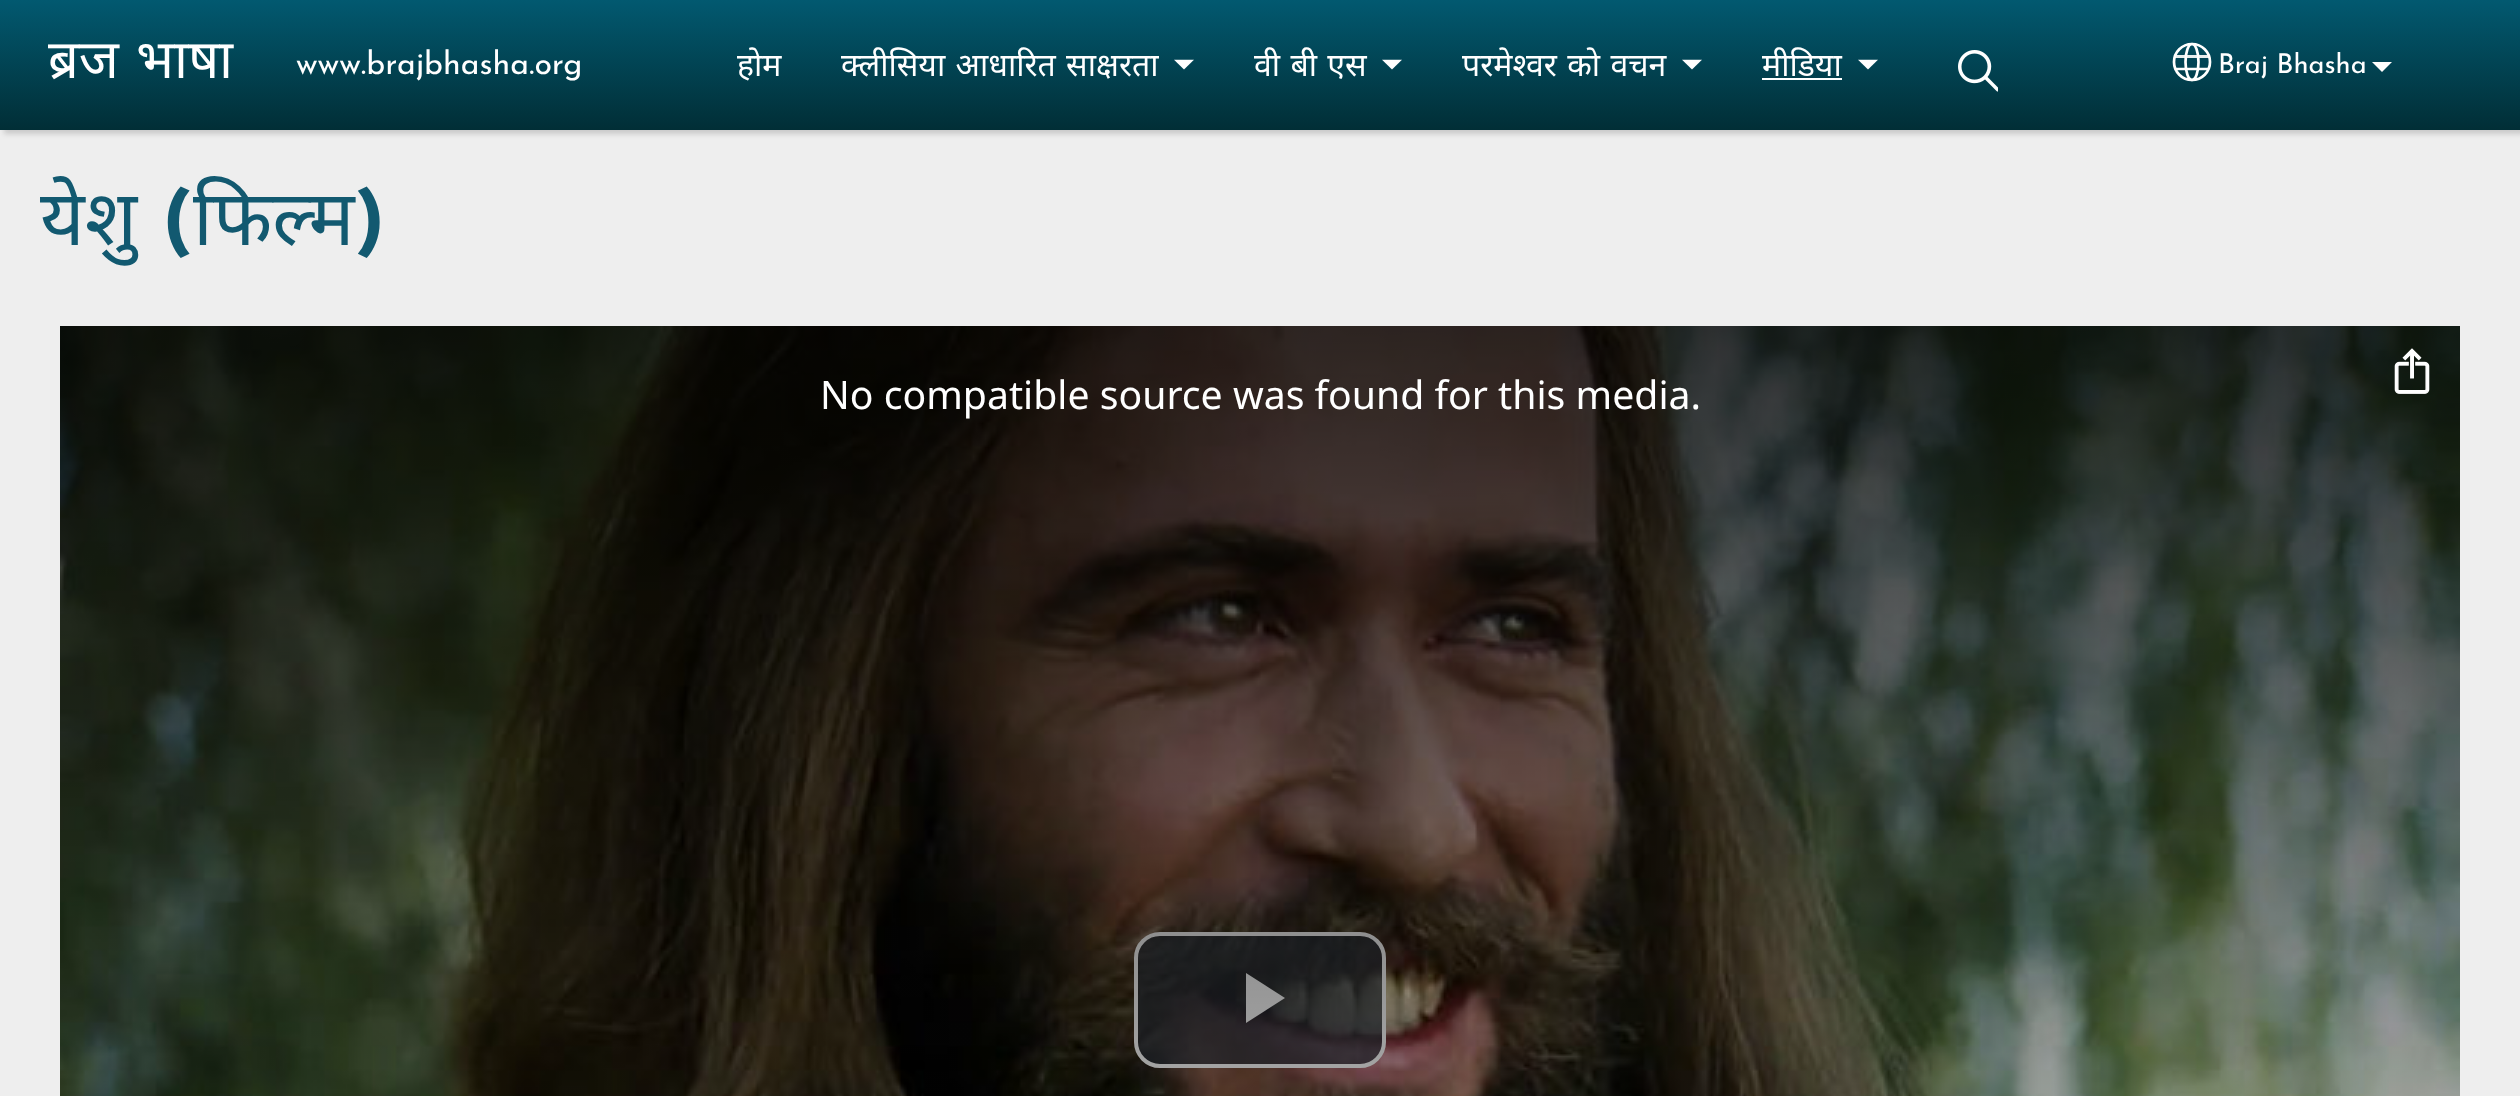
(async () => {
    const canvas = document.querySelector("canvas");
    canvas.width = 2520;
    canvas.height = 1096;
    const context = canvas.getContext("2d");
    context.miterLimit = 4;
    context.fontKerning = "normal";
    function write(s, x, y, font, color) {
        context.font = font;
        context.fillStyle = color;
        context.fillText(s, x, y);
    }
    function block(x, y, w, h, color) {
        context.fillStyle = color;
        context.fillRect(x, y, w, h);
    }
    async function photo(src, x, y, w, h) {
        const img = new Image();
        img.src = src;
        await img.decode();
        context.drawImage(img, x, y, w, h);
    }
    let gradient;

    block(0, 0, 2520, 1096, "rgb(238, 238, 238)");
    context.fillStyle = "rgba(0, 0, 0, 0.15)";
    context.filter = "blur(2.5px)";
    context.beginPath();
    context.rect(4, 4, 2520, 130);
    context.fill();
    context.filter = "none";
    gradient = context.createLinearGradient(1260, 0, 1260, 130);
    gradient.addColorStop(0, "rgb(2, 89, 112)");
    gradient.addColorStop(1, "rgb(1, 46, 54)");
    context.fillStyle = gradient;
    context.fillRect(0, 0, 2520, 130);
    context.wordSpacing = "3px";
    write("ब्रज भाषा", 48, 78, "54px Noto Sans", "rgb(255, 255, 255)");
    context.wordSpacing = "0px";
    write("www.brajbhasha.org", 296, 74, "32px Josefin Sans", "rgb(255, 255, 255)");
    write("होम", 737, 76, "32px Noto Sans", "rgb(255, 255, 255)");
    context.wordSpacing = "2px";
    write("क्लीसिया आधारित साक्षरता", 841, 76, "32px Noto Sans", "rgb(255, 255, 255)");
    await photo("media/1.png", 1174, 59, 20, 11);
    write("वी बी एस", 1254, 76, "32px Noto Sans", "rgb(255, 255, 255)");
    await photo("media/1.png", 1382, 59, 20, 11);
    write("परमेश्वर को वचन", 1462, 76, "32px Noto Sans", "rgb(255, 255, 255)");
    await photo("media/1.png", 1682, 59, 20, 11);
    context.wordSpacing = "0px";
    write("मीडिया", 1762, 76, "32px Noto Sans", "rgb(255, 255, 255)");
    block(1762, 78, 80, 2, "rgb(255, 255, 255)");
    await photo("media/1.png", 1858, 59, 20, 11);
    await photo("media/2.png", 1958, 50, 40, 42);
    context.beginPath();
    context.arc(2192, 62, 18, 0, Math.PI * 2);
    context.strokeStyle = "rgb(255, 255, 254)";
    context.lineWidth = 2.7;
    context.stroke();
    context.beginPath();
    context.ellipse(2192, 62, 6.5, 18, 0, 0, Math.PI * 2);
    context.stroke();
    block(2175, 55, 34, 3, "rgba(255, 255, 254, 0.9)");
    context.beginPath();
    context.moveTo(2174.5, 69);
    context.lineTo(2209, 69);
    context.stroke();
    write("Braj Bhasha", 2218, 73, "27.25px Josefin Sans", "rgb(255, 255, 255)");
    context.fillStyle = "rgb(255, 255, 254)";
    context.beginPath();
    context.moveTo(2372, 62);
    context.lineTo(2392, 62);
    context.lineTo(2382, 72);
    context.closePath();
    context.fill();
    write("येशु", 40, 245, "77px Noto Sans", "rgb(18, 89, 112)");
    write("(", 162, 245, "bold 77px Josefin Sans", "rgb(18, 89, 112)");
    write("फिल्म", 193, 245, "77px Noto Sans", "rgb(18, 89, 112)");
    write(")", 354, 245, "bold 77px Josefin Sans", "rgb(18, 89, 112)");
    await photo("media/3.png", 60, 326, 2400, 770);
    context.fillStyle = "rgba(43, 51, 63, 0.7)";
    context.beginPath();
    context.roundRect(1136, 934, 248, 132, 24);
    context.fill();
    context.strokeStyle = "rgb(255, 255, 255)";
    context.lineWidth = 4;
    context.stroke();
    context.fillStyle = "rgb(255, 255, 255)";
    context.beginPath();
    context.moveTo(1246, 973);
    context.lineTo(1246, 1023);
    context.lineTo(1285, 998);
    context.closePath();
    context.fill();
    gradient = context.createLinearGradient(1260, 326, 1260, 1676);
    gradient.addColorStop(0, "rgba(0, 0, 0, 0.8)");
    gradient.addColorStop(1, "rgba(0, 0, 0, 0)");
    context.fillStyle = gradient;
    context.fillRect(60, 326, 2400, 770);
    await photo("media/4.png", 2394, 348, 36, 46);
    write("No compatible source was found for this media.", 820, 409, "39.2px 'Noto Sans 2'", "rgb(255, 255, 255)");
})();
